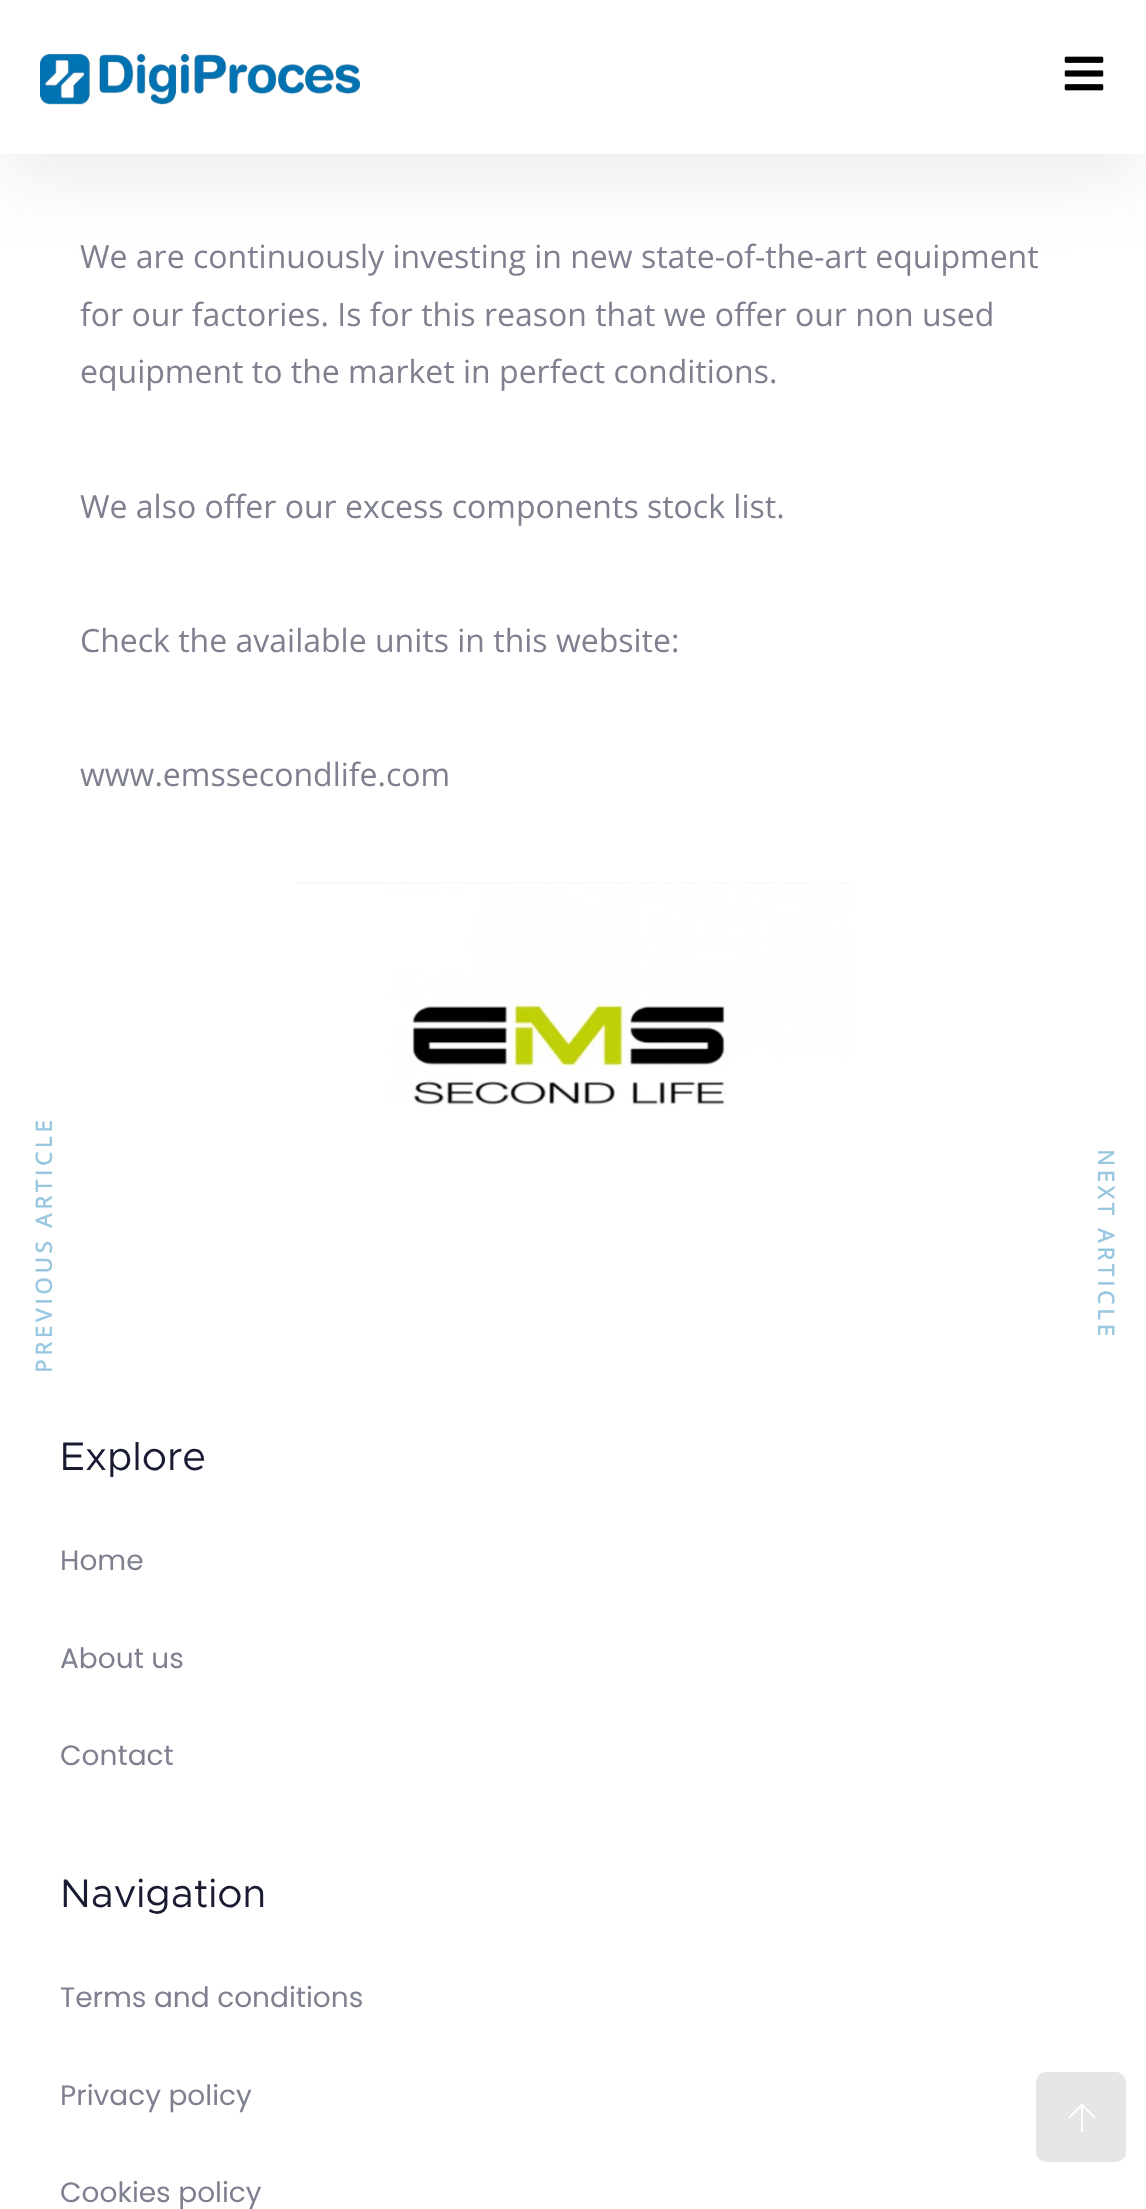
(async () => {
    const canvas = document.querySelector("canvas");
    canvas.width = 1146;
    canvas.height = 2209;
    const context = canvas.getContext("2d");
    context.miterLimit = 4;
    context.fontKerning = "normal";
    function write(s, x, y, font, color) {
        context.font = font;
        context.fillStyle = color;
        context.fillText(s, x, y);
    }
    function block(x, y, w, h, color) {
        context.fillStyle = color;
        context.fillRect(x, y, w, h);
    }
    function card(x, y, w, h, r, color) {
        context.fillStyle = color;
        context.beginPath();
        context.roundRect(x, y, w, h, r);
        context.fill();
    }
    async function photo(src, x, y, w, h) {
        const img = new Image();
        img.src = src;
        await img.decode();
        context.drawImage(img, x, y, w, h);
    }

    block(0, 0, 1146, 2209, "rgb(255, 255, 255)");
    context.fillStyle = "rgba(47, 47, 47, 0.1)";
    context.filter = "blur(40px)";
    context.beginPath();
    context.rect(0, 20, 1146, 154);
    context.fill();
    context.filter = "none";
    block(0, 0, 1146, 154, "rgb(255, 255, 255)");
    await photo("media/1.png", 40, 54, 320, 51);
    await photo("media/2.png", 1064, 56, 40, 35);
    write("We are continuously investing in new state-of-the-art equipment", 80, 268, "32px Open Sans", "rgb(126, 128, 144)");
    write("for our factories. Is for this reason that we offer our non used", 80, 326, "32px Open Sans", "rgb(126, 128, 144)");
    write("equipment to the market in perfect conditions.", 80, 383, "32px Open Sans", "rgb(126, 128, 144)");
    write("We also offer our excess components stock list.", 80, 518, "32px Open Sans", "rgb(126, 128, 144)");
    write("Check the available units in this website:", 80, 652, "32px Open Sans", "rgb(126, 128, 144)");
    write("www.emssecondlife.com", 80, 786, "32px Open Sans", "rgb(126, 128, 144)");
    await photo("media/3.png", 296, 882, 554, 223);
    context.letterSpacing = "4px";
    context.font = "bold 22px Open Sans";
    context.fillStyle = "rgb(153, 199, 224)";
    context.save();
    context.translate(52, 1373);
    context.rotate(-90 * Math.PI / 180);
    context.fillText("PREVIOUS ARTICLE", 0, 0);
    context.restore();
    context.save();
    context.translate(1098, 1149);
    context.rotate(90 * Math.PI / 180);
    context.fillText("NEXT ARTICLE", 0, 0);
    context.restore();
    context.letterSpacing = "0px";
    write("Explore", 60, 1470, "40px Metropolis", "rgb(24, 27, 49)");
    write("Home", 60, 1570, "28px Poppins", "rgb(126, 128, 144)");
    write("About us", 60, 1668, "28px Poppins", "rgb(126, 128, 144)");
    write("Contact", 60, 1765, "28px Poppins", "rgb(126, 128, 144)");
    write("Navigation", 60, 1907, "40px Metropolis", "rgb(24, 27, 49)");
    write("Terms and conditions", 60, 2007, "28px Poppins", "rgb(126, 128, 144)");
    write("Privacy policy", 60, 2105, "28px Poppins", "rgb(126, 128, 144)");
    write("Cookies policy", 60, 2202, "28px Poppins", "rgb(126, 128, 144)");
    card(1036, 2072, 90, 90, 10, "rgb(230, 230, 230)");
    context.fillStyle = "rgb(255, 255, 255)";
    context.beginPath();
    context.moveTo(1094.5, 2118.5);
    context.lineTo(1083, 2107);
    context.lineTo(1083, 2132);
    context.lineTo(1081, 2132);
    context.lineTo(1081, 2107);
    context.lineTo(1069.5, 2118.5);
    context.lineTo(1068, 2117.5);
    context.lineTo(1082, 2103.5);
    context.lineTo(1096, 2117.5);
    context.closePath();
    context.fill();
})();
